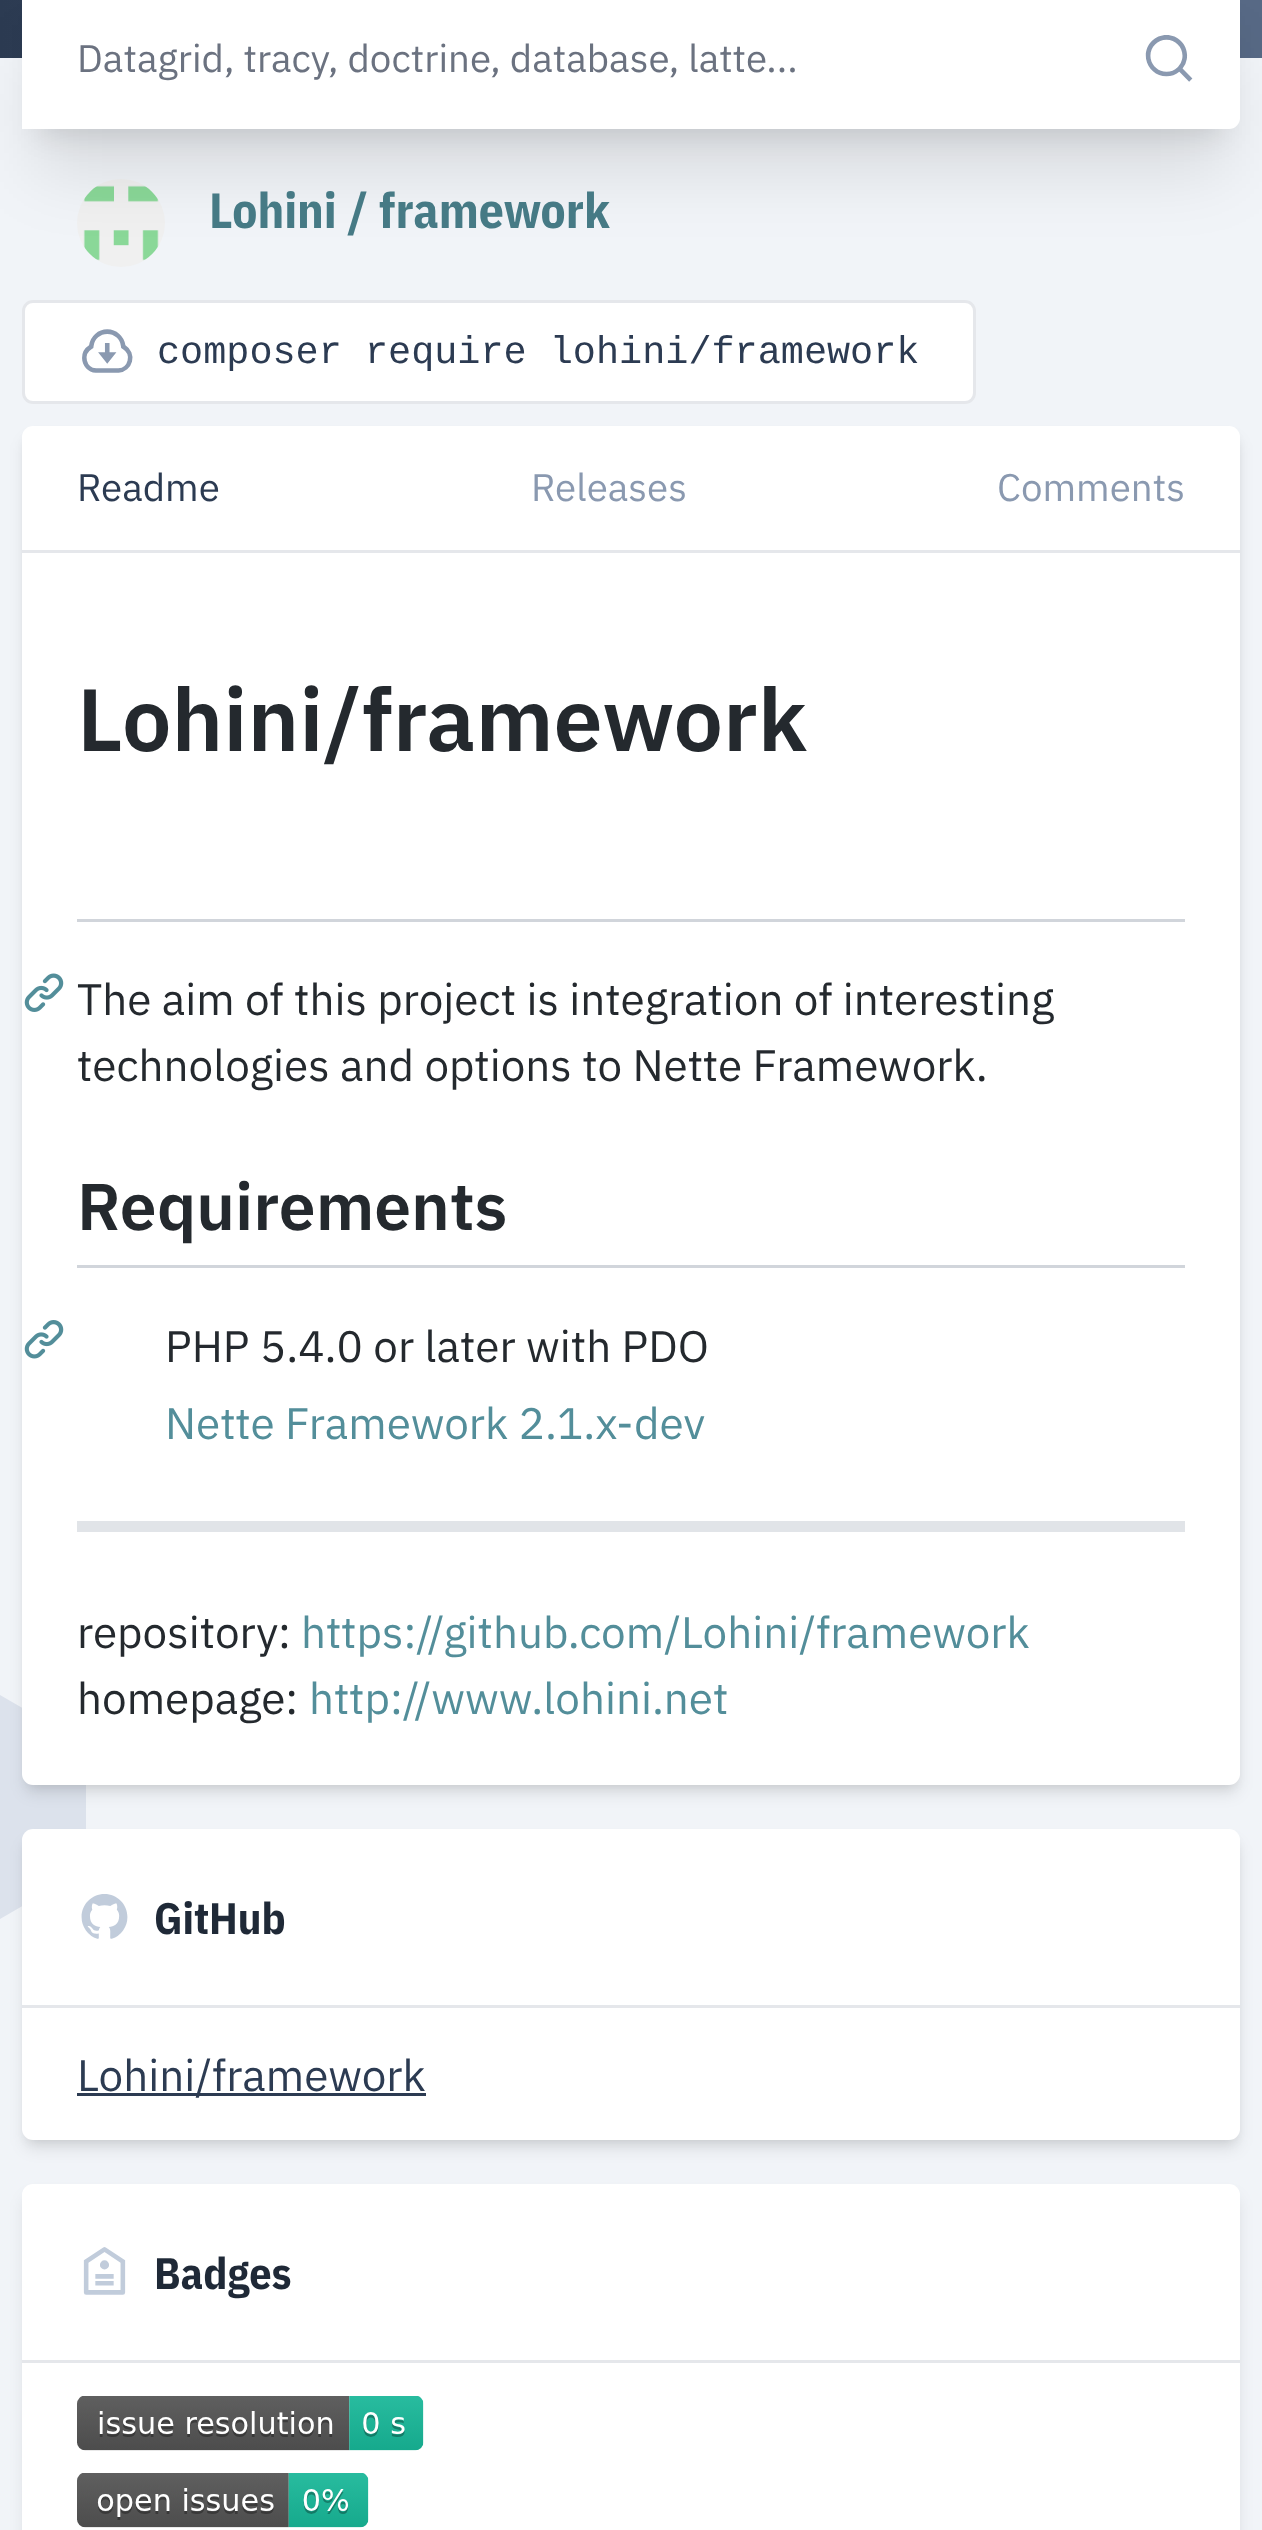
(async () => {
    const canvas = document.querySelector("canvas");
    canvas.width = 1262;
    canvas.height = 2530;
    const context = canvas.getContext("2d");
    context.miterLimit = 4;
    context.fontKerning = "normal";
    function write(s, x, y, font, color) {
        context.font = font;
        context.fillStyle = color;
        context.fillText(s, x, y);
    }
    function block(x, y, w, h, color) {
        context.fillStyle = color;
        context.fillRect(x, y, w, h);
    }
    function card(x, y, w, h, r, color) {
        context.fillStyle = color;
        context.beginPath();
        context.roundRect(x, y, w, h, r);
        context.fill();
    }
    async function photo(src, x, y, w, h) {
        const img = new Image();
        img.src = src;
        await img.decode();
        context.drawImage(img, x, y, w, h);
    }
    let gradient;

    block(0, 0, 1262, 2530, "rgb(241, 244, 248)");
    gradient = context.createLinearGradient(0, -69, 1262, -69);
    gradient.addColorStop(0, "rgb(44, 59, 82)");
    gradient.addColorStop(1, "rgb(82, 100, 128)");
    context.fillStyle = gradient;
    context.fillRect(0, 0, 22, 58);
    context.save();
    context.beginPath();
    context.rect(1161, 0, 101, 58);
    context.clip();
    context.fillStyle = "rgb(87, 105, 133)";
    context.beginPath();
    context.moveTo(1206, -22);
    context.bezierCurveTo(1198, -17, 1193, -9, 1193, 0);
    context.lineTo(1193, 137);
    context.bezierCurveTo(1193, 146, 1198, 154, 1206, 159);
    context.lineTo(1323, 227);
    context.bezierCurveTo(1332, 231, 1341, 231, 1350, 227);
    context.lineTo(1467, 159);
    context.bezierCurveTo(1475, 154, 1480, 146, 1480, 137);
    context.lineTo(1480, 0);
    context.bezierCurveTo(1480, -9, 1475, -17, 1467, -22);
    context.lineTo(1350, -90);
    context.bezierCurveTo(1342, -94, 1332, -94, 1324, -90);
    context.closePath();
    context.fill();
    context.restore();
    context.fillStyle = "rgba(0, 0, 0, 0.1)";
    context.filter = "blur(14px)";
    context.beginPath();
    context.rect(39, 25, 1185, 110);
    context.fill();
    context.filter = "none";
    await photo("media/2.png", 77, 179, 88, 88);
    context.filter = "blur(34.5px)";
    context.beginPath();
    context.rect(36, 55, 1191, 116);
    context.fill();
    context.filter = "none";
    card(22, -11, 1218, 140, 11, "rgb(255, 255, 255)");
    block(22, 119, 10, 10, "rgb(255, 255, 255)");
    write("Datagrid, tracy, doctrine, database, latte...", 77, 72, "38.5px IBM Plex Sans", "rgb(107, 114, 128)");
    await photo("media/1.png", 1145, 35, 48, 47);
    write("Lohini / framework", 209, 228, "bold 49.5px IBM Plex Sans Condensed", "rgb(70, 122, 133)");
    context.fillStyle = "rgb(255, 255, 255)";
    context.beginPath();
    context.roundRect(23.5, 301.5, 951, 101, 9.5);
    context.fill();
    context.strokeStyle = "rgb(229, 231, 235)";
    context.lineWidth = 3;
    context.stroke();
    await photo("media/3.png", 82, 329, 51, 44);
    write("composer require lohini/framework", 157, 363, "38.5px Liberation Mono", "rgb(44, 59, 82)");
    context.fillStyle = "rgb(220, 226, 236)";
    context.beginPath();
    context.moveTo(-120, 1739);
    context.bezierCurveTo(-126, 1742, -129, 1749, -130, 1756);
    context.lineTo(-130, 1858);
    context.bezierCurveTo(-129, 1865, -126, 1871, -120, 1875);
    context.lineTo(-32, 1926);
    context.bezierCurveTo(-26, 1929, -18, 1929, -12, 1926);
    context.lineTo(76, 1875);
    context.bezierCurveTo(82, 1871, 85, 1865, 86, 1858);
    context.lineTo(86, 1756);
    context.bezierCurveTo(85, 1749, 82, 1742, 76, 1739);
    context.lineTo(-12, 1688);
    context.bezierCurveTo(-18, 1685, -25, 1685, -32, 1688);
    context.closePath();
    context.fill();
    context.fillStyle = "rgba(0, 0, 0, 0.1)";
    context.filter = "blur(5.5px)";
    context.beginPath();
    context.roundRect(28, 437, 1207, 1348, 6);
    context.fill();
    context.filter = "none";
    context.filter = "blur(8px)";
    context.beginPath();
    context.roundRect(25, 440, 1213, 1353, 8);
    context.fill();
    context.filter = "none";
    card(22, 426, 1218, 1359, 11, "rgb(255, 255, 255)");
    write("Readme", 77, 501, "38.5px IBM Plex Sans", "rgb(44, 59, 82)");
    write("Releases", 531, 501, "38.5px IBM Plex Sans", "rgb(138, 153, 176)");
    write("Comments", 997, 501, "38.5px IBM Plex Sans", "rgb(138, 153, 176)");
    block(22, 550, 1218, 3, "rgb(229, 231, 235)");
    block(77, 919, 1108, 3, "rgb(209, 213, 219)");
    write("Lohini/framework", 77, 751, "600 88px IBM Plex Sans", "rgb(36, 41, 46)");
    await photo("media/4.png", 24, 973, 40, 39);
    write("The aim of this project is integration of interesting", 77, 1015, "44px IBM Plex Sans", "rgb(36, 41, 46)");
    write("technologies and options to Nette Framework.", 77, 1081, "44px IBM Plex Sans", "rgb(36, 41, 46)");
    block(77, 1265, 1108, 3, "rgb(209, 213, 219)");
    write("Requirements", 77, 1230, "600 66px IBM Plex Sans", "rgb(36, 41, 46)");
    await photo("media/5.png", 24, 1320, 40, 39);
    write("PHP 5.4.0 or later with PDO", 165, 1362, "44px IBM Plex Sans", "rgb(36, 41, 46)");
    write("Nette Framework 2.1.x-dev", 165, 1439, "44px IBM Plex Sans", "rgb(83, 142, 154)");
    block(77, 1521, 1108, 11, "rgb(225, 228, 232)");
    write("repository:", 77, 1648, "44px IBM Plex Sans", "rgb(36, 41, 46)");
    write("https://github.com/Lohini/framework", 301, 1648, "44px IBM Plex Sans", "rgb(83, 142, 154)");
    write("homepage:", 77, 1714, "44px IBM Plex Sans", "rgb(36, 41, 46)");
    write("http://www.lohini.net", 309, 1714, "44px IBM Plex Sans", "rgb(83, 142, 154)");
    context.fillStyle = "rgba(0, 0, 0, 0.1)";
    context.filter = "blur(5.5px)";
    context.beginPath();
    context.roundRect(28, 1840, 1207, 300, 6);
    context.fill();
    context.filter = "none";
    context.filter = "blur(8px)";
    context.beginPath();
    context.roundRect(25, 1843, 1213, 305, 8);
    context.fill();
    context.filter = "none";
    card(22, 1829, 1218, 311, 11, "rgb(255, 255, 255)");
    await photo("media/6.png", 81, 1894, 47, 45);
    write("GitHub", 154, 1934, "bold 44px IBM Plex Sans Condensed", "rgb(31, 41, 55)");
    block(22, 2005, 1218, 3, "rgb(229, 231, 235)");
    block(77, 2093, 349, 3, "rgb(44, 59, 82)");
    write("Lohini/framework", 77, 2091, "44px IBM Plex Sans", "rgb(44, 59, 82)");
    context.fillStyle = "rgba(0, 0, 0, 0.1)";
    context.filter = "blur(8px)";
    context.beginPath();
    context.roundRect(25, 2197, 1213, 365, 8);
    context.fill();
    context.filter = "none";
    card(22, 2184, 1218, 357, 11, "rgb(255, 255, 255)");
    await photo("media/7.png", 83, 2247, 43, 48);
    write("Badges", 154, 2289, "bold 44px IBM Plex Sans Condensed", "rgb(31, 41, 55)");
    block(22, 2360, 1218, 3, "rgb(229, 231, 235)");
    await photo("media/8.png", 77, 2396, 347, 55);
    await photo("media/9.png", 77, 2473, 292, 55);
})();
